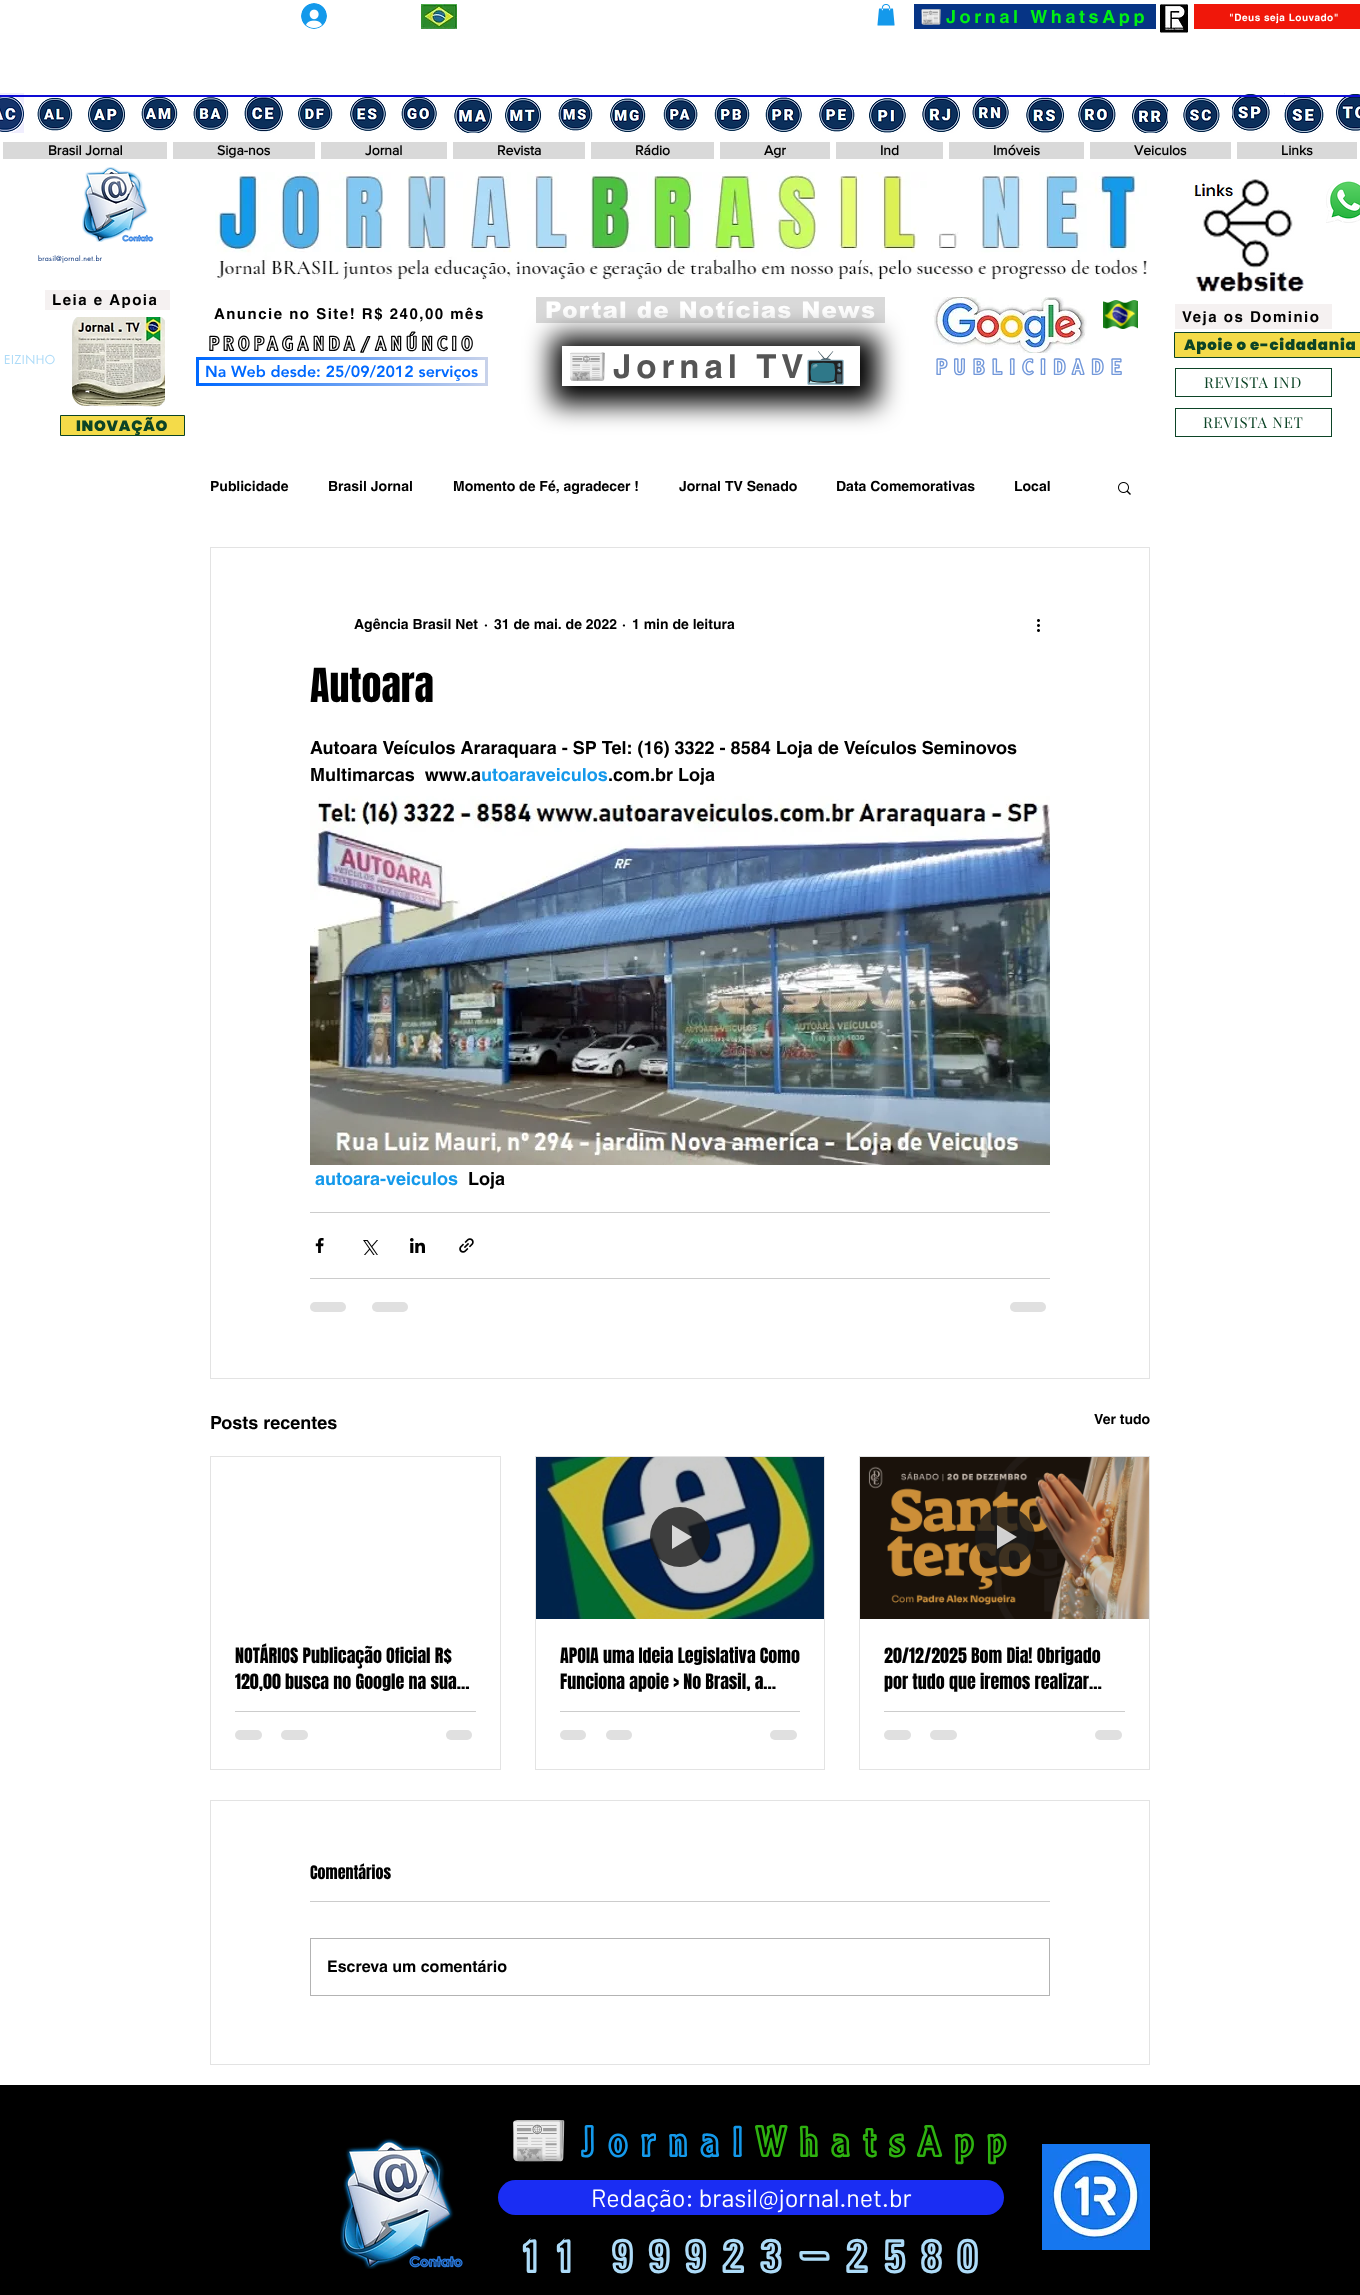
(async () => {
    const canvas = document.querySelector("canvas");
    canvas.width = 1360;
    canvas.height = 2295;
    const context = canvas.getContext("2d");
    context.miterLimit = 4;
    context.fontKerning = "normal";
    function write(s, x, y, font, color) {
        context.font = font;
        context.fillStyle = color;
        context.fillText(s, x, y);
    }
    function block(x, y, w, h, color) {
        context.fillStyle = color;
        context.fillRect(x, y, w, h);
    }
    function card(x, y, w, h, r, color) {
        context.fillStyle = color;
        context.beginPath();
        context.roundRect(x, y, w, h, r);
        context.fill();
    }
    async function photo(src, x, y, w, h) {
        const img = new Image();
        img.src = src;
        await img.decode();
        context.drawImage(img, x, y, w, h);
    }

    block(0, 0, 1360, 2295, "rgb(255, 255, 255)");
    await photo("media/1.png", 301, 3, 26, 26);
    await photo("media/2.png", 421, 4, 36, 25);
    await photo("media/3.png", 877, 4, 18, 22);
    block(914, 4, 242, 25, "rgb(6, 52, 133)");
    context.save();
    context.beginPath();
    context.rect(920, 8, 226, 18);
    context.clip();
    context.letterSpacing = "3.6px";
    write("📰", 920, 23, "18px Noto Color Emoji", "rgb(0, 240, 20)");
    write("Jornal WhatsApp", 946, 23, "bold 18px helvetica", "rgb(0, 240, 20)");
    context.restore();
    await photo("media/4.png", 1160, 4, 28, 29);
    block(1194, 4, 166, 25, "rgb(240, 23, 10)");
    context.letterSpacing = "0.5px";
    write("\"Deus seja Louvado\"", 1229, 21, "bold 10px helvetica", "rgb(255, 255, 255)");
    await photo("media/5.png", 0, 93, 24, 40);
    await photo("media/6.png", 37, 97, 36, 34);
    await photo("media/7.png", 88, 97, 37, 35);
    await photo("media/8.png", 141, 97, 37, 34);
    await photo("media/9.png", 193, 97, 36, 33);
    await photo("media/10.png", 244, 93, 39, 40);
    await photo("media/11.png", 298, 97, 35, 33);
    await photo("media/12.png", 350, 97, 36, 34);
    await photo("media/13.png", 401, 97, 38, 34);
    await photo("media/14.png", 452, 97, 40, 36);
    await photo("media/15.png", 505, 98, 37, 35);
    await photo("media/16.png", 558, 97, 35, 34);
    await photo("media/17.png", 610, 97, 36, 35);
    await photo("media/18.png", 663, 97, 35, 34);
    await photo("media/19.png", 714, 98, 36, 33);
    await photo("media/20.png", 765, 97, 39, 35);
    await photo("media/21.png", 817, 98, 38, 34);
    await photo("media/22.png", 869, 98, 39, 35);
    await photo("media/23.png", 920, 94, 40, 39);
    await photo("media/24.png", 972, 94, 39, 35);
    await photo("media/25.png", 1024, 97, 40, 36);
    await photo("media/26.png", 1076, 97, 40, 35);
    await photo("media/27.png", 1132, 97, 36, 36);
    await photo("media/28.png", 1181, 98, 39, 34);
    await photo("media/29.png", 1232, 94, 40, 39);
    await photo("media/30.png", 1284, 93, 40, 40);
    await photo("media/31.png", 1336, 94, 24, 39);
    block(0, 95, 1360, 2, "rgb(14, 11, 212)");
    block(3, 142, 164, 17, "rgb(217, 217, 217)");
    context.letterSpacing = "0px";
    write("Brasil Jornal", 48, 155, "bold 14px 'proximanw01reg'", "rgb(0, 0, 0)");
    block(173, 142, 142, 17, "rgb(217, 217, 217)");
    write("Siga-nos", 217, 155, "bold 14px 'proximanw01reg'", "rgb(0, 0, 0)");
    block(321, 142, 126, 17, "rgb(217, 217, 217)");
    write("Jornal", 365, 155, "bold 14px 'proximanw01reg'", "rgb(0, 0, 0)");
    block(453, 142, 132, 17, "rgb(217, 217, 217)");
    write("Revista", 497, 155, "bold 14px 'proximanw01reg'", "rgb(0, 0, 0)");
    block(591, 142, 123, 17, "rgb(217, 217, 217)");
    write("Rádio", 635, 155, "bold 14px 'proximanw01reg'", "rgb(0, 0, 0)");
    block(720, 142, 110, 17, "rgb(217, 217, 217)");
    write("Agr", 764, 155, "bold 14px 'proximanw01reg'", "rgb(0, 0, 0)");
    block(836, 142, 107, 17, "rgb(217, 217, 217)");
    write("Ind", 880, 155, "bold 14px 'proximanw01reg'", "rgb(0, 0, 0)");
    block(949, 142, 135, 17, "rgb(217, 217, 217)");
    write("Imóveis", 993, 155, "bold 14px 'proximanw01reg'", "rgb(0, 0, 0)");
    block(1090, 142, 141, 17, "rgb(217, 217, 217)");
    write("Veiculos", 1134, 155, "bold 14px 'proximanw01reg'", "rgb(0, 0, 0)");
    block(1237, 142, 120, 17, "rgb(217, 217, 217)");
    write("Links", 1281, 155, "bold 14px 'proximanw01reg'", "rgb(0, 0, 0)");
    await photo("media/32.png", 82, 167, 72, 75);
    await photo("media/33.png", 215, 172, 932, 108);
    await photo("media/34.png", 1194, 179, 111, 113);
    await photo("media/35.png", 1326, 181, 34, 42);
    context.letterSpacing = "0.25px";
    write("brasil@jornal.net.br", 38, 261, "7px futura", "rgb(4, 46, 118)");
    block(45, 290, 125, 20, "rgb(245, 241, 241)");
    context.letterSpacing = "1.5px";
    write("Leia e Apoia", 52, 305, "bold 15px helvetica", "rgb(0, 0, 0)");
    write("Anuncie no Site! R$ 240,00 mês", 214, 319, "bold 15px helvetica", "rgb(0, 0, 0)");
    block(536, 297, 349, 26, "rgb(217, 217, 217)");
    context.letterSpacing = "1.15px";
    write("Portal de Notícias News", 545, 318, "900 23px arial", "rgb(255, 255, 255)");
    await photo("media/36.png", 933, 297, 154, 56);
    await photo("media/37.png", 1103, 300, 35, 29);
    block(1175, 304, 157, 25, "rgb(245, 241, 241)");
    context.letterSpacing = "1.5px";
    write("Veja os Dominio", 1182, 322, "bold 15px helvetica", "rgb(0, 0, 0)");
    await photo("media/38.png", 72, 317, 93, 90);
    context.letterSpacing = "3.5px";
    write("PROPAGANDA/ANÚNCIO", 208, 351, "bold 23px 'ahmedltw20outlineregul'", "rgb(0, 0, 0)");
    context.fillStyle = "rgb(244, 219, 73)";
    context.beginPath();
    context.rect(1174.5, 332.5, 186, 25);
    context.fill();
    context.strokeStyle = "rgb(12, 68, 38)";
    context.stroke();
    context.letterSpacing = "0.75px";
    write("Apoie o e-cidadania", 1184, 350, "900 15px Poppins", "rgb(12, 68, 38)");
    context.letterSpacing = "0.5px";
    write("EIZINHO", 4, 364, "12px futura", "rgb(173, 219, 248)");
    await photo("media/39.png", 196, 357, 292, 29);
    context.letterSpacing = "0px";
    write("Na Web desde: 25/09/2012 serviços", 205, 377, "900 16px 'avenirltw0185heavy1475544'", "rgb(0, 105, 255)");
    context.save();
    context.beginPath();
    context.moveTo(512, 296);
    context.lineTo(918, 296);
    context.lineTo(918, 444);
    context.lineTo(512, 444);
    context.closePath();
    context.moveTo(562, 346);
    context.lineTo(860, 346);
    context.lineTo(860, 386);
    context.lineTo(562, 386);
    context.closePath();
    context.clip("evenodd");
    context.fillStyle = "rgb(0, 0, 0)";
    context.filter = "blur(13px)";
    context.beginPath();
    context.rect(552, 336, 326, 68);
    context.fill();
    context.filter = "none";
    context.restore();
    context.letterSpacing = "5px";
    write("📰", 567, 378, "33px Noto Color Emoji", "rgb(85, 85, 85)");
    write("Jornal TV", 613, 378, "bold 33px helvetica", "rgb(85, 85, 85)");
    write("📺", 805, 378, "33px Noto Color Emoji", "rgb(85, 85, 85)");
    context.letterSpacing = "6.25px";
    write("PUBLICIDADE", 935, 375, "bold 25px 'ahmedltw20outlineregul'", "rgb(114, 152, 218)");
    context.strokeRect(1175.5, 368.5, 156, 28);
    context.letterSpacing = "0.75px";
    write("REVISTA IND", 1204, 388, "15px Playfair Display", "rgb(12, 68, 38)");
    context.fillStyle = "rgb(244, 219, 73)";
    context.beginPath();
    context.rect(60.5, 415.5, 124, 20);
    context.fill();
    context.stroke();
    context.save();
    context.beginPath();
    context.rect(76, 416, 93, 19);
    context.clip();
    write("INOVAÇÃO", 76, 431, "900 15px Poppins", "rgb(12, 68, 38)");
    context.restore();
    context.strokeRect(1175.5, 408.5, 156, 28);
    write("REVISTA NET", 1203, 428, "15px Playfair Display", "rgb(12, 68, 38)");
    context.letterSpacing = "0px";
    write("Publicidade", 210, 491, "bold 14px helvetica", "rgb(0, 0, 0)");
    write("Brasil Jornal", 328, 491, "bold 14px helvetica", "rgb(0, 0, 0)");
    write("Momento de Fé, agradecer !", 453, 491, "bold 14px helvetica", "rgb(0, 0, 0)");
    write("Jornal TV Senado", 679, 491, "bold 14px helvetica", "rgb(0, 0, 0)");
    write("Data Comemorativas", 836, 491, "bold 14px helvetica", "rgb(0, 0, 0)");
    write("Local", 1014, 491, "bold 14px helvetica", "rgb(0, 0, 0)");
    await photo("media/40.png", 1118, 482, 13, 13);
    context.strokeStyle = "rgb(227, 227, 227)";
    context.strokeRect(210.5, 547.5, 939, 831);
    write("Agência Brasil Net", 354, 629, "bold 14px helvetica", "rgb(0, 0, 0)");
    write("·", 484, 629, "bold 14px helvetica", "rgb(0, 0, 0)");
    write("31 de mai. de 2022", 494, 629, "bold 14px helvetica", "rgb(0, 0, 0)");
    write("·", 622, 629, "bold 14px helvetica", "rgb(0, 0, 0)");
    write("1 min de leitura", 632, 629, "bold 14px helvetica", "rgb(0, 0, 0)");
    await photo("media/41.png", 1037, 619, 3, 13);
    write("Autoara", 310, 702, "40px Anton", "rgb(0, 0, 0)");
    write("Autoara Veículos Araraquara - SP Tel: (16) 3322 - 8584 Loja de Veículos Seminovos", 310, 754, "bold 18px helvetica", "rgb(0, 0, 0)");
    write("Multimarcas  www.a", 310, 781, "bold 18px helvetica", "rgb(0, 0, 0)");
    write("utoaraveiculos", 481, 781, "bold 18px helvetica", "rgb(20, 153, 235)");
    write(".com.br Loja", 608, 781, "bold 18px helvetica", "rgb(0, 0, 0)");
    await photo("media/42.png", 310, 796, 740, 369);
    write("autoara-veiculos", 315, 1185, "bold 18px helvetica", "rgb(20, 153, 235)");
    write("Loja", 468, 1185, "bold 18px helvetica", "rgb(0, 0, 0)");
    block(310, 1212, 740, 1, "rgb(204, 204, 204)");
    await photo("media/43.png", 315, 1238, 9, 15);
    await photo("media/44.png", 363, 1240, 15, 15);
    await photo("media/45.png", 410, 1238, 15, 15);
    await photo("media/46.png", 459, 1238, 15, 15);
    block(310, 1278, 740, 1, "rgb(204, 204, 204)");
    card(310, 1302, 36, 10, 5, "rgb(224, 224, 224)");
    card(372, 1302, 36, 10, 5, "rgb(224, 224, 224)");
    card(1010, 1302, 36, 10, 5, "rgb(224, 224, 224)");
    write("Posts recentes", 210, 1429, "bold 18px helvetica", "rgb(0, 0, 0)");
    write("Ver tudo", 1094, 1424, "bold 14px helvetica", "rgb(0, 0, 0)");
    context.strokeRect(210.5, 1456.5, 290, 313);
    write("NOTÁRIOS Publicação Oficial R$", 235, 1663, "18px Anton", "rgb(0, 0, 0)");
    write("120,00 busca no Google na sua…", 235, 1689, "18px Anton", "rgb(0, 0, 0)");
    block(235, 1711, 241, 1, "rgb(204, 204, 204)");
    card(235, 1730, 27, 10, 5, "rgb(224, 224, 224)");
    card(281, 1730, 27, 10, 5, "rgb(224, 224, 224)");
    card(446, 1730, 26, 10, 5, "rgb(224, 224, 224)");
    context.strokeRect(535.5, 1456.5, 289, 313);
    await photo("media/47.png", 536, 1457, 288, 162);
    context.fillStyle = "rgba(26, 26, 26, 0.8)";
    context.beginPath();
    context.arc(680, 1537, 30, 0, Math.PI * 2);
    context.fill();
    context.fillStyle = "rgba(255, 255, 255, 0.8)";
    context.beginPath();
    context.moveTo(672, 1525);
    context.lineTo(672, 1549);
    context.lineTo(692, 1537);
    context.closePath();
    context.fill();
    write("APOIA uma Ideia Legislativa Como", 560, 1663, "18px Anton", "rgb(0, 0, 0)");
    write("Funciona apoie > No Brasil, a…", 560, 1689, "18px Anton", "rgb(0, 0, 0)");
    block(560, 1711, 240, 1, "rgb(204, 204, 204)");
    card(560, 1730, 26, 10, 5, "rgb(224, 224, 224)");
    card(606, 1730, 26, 10, 5, "rgb(224, 224, 224)");
    card(770, 1730, 27, 10, 5, "rgb(224, 224, 224)");
    context.strokeRect(859.5, 1456.5, 290, 313);
    await photo("media/48.png", 860, 1457, 289, 162);
    context.fillStyle = "rgba(26, 26, 26, 0.8)";
    context.beginPath();
    context.arc(1005, 1537, 30, 0, Math.PI * 2);
    context.fill();
    context.fillStyle = "rgba(255, 255, 255, 0.8)";
    context.beginPath();
    context.moveTo(997, 1525);
    context.lineTo(997, 1549);
    context.lineTo(1017, 1537);
    context.closePath();
    context.fill();
    write("20/12/2025 Bom Dia! Obrigado", 884, 1663, "18px Anton", "rgb(0, 0, 0)");
    write("por tudo que iremos realizar…", 884, 1689, "18px Anton", "rgb(0, 0, 0)");
    block(884, 1711, 241, 1, "rgb(204, 204, 204)");
    card(884, 1730, 27, 10, 5, "rgb(224, 224, 224)");
    card(930, 1730, 27, 10, 5, "rgb(224, 224, 224)");
    card(1095, 1730, 27, 10, 5, "rgb(224, 224, 224)");
    context.strokeRect(210.5, 1800.5, 939, 264);
    write("Comentários", 310, 1879, "16px Anton", "rgb(0, 0, 0)");
    block(310, 1901, 740, 1, "rgb(204, 204, 204)");
    context.strokeStyle = "rgb(179, 179, 179)";
    context.strokeRect(310.5, 1938.5, 739, 57);
    write("Escreva um comentário", 327, 1972, "bold 16px helvetica", "rgb(0, 0, 0)");
    block(0, 2085, 1360, 210, "rgb(0, 0, 0)");
    await photo("media/49.png", 340, 2138, 123, 131);
    context.letterSpacing = "12px";
    write("📰", 509, 2157, "bold 48px Noto Color Emoji", "rgb(20, 153, 235)");
    write("Jornal", 581, 2157, "bold 48px 'ahmedltw20outlineregul'", "rgb(20, 153, 235)");
    write("WhatsApp", 754, 2157, "bold 48px 'ahmedltw20outlineregul'", "rgb(46, 178, 16)");
    await photo("media/50.png", 1042, 2144, 108, 106);
    card(498, 2180, 506, 35, 17.5, "rgb(26, 45, 243)");
    context.letterSpacing = "0px";
    write("Redação: brasil@jornal.net.br", 591, 2207, "25px Barlow", "rgb(255, 255, 255)");
    context.letterSpacing = "14.25px";
    write("11 99923-2580", 519, 2273, "bold 57px 'ahmedltw20outlineregul'", "rgb(173, 219, 248)");
})();
